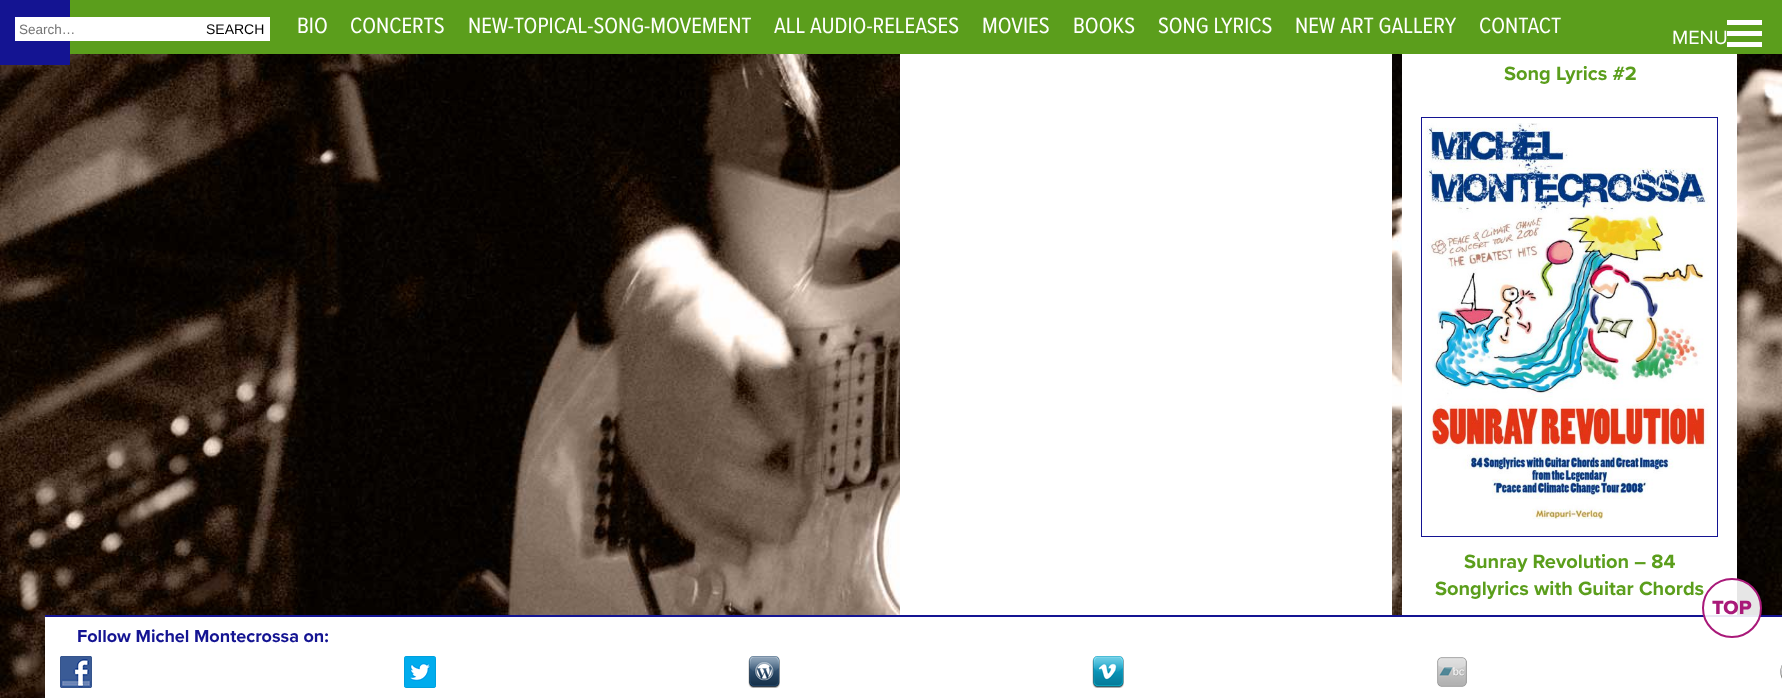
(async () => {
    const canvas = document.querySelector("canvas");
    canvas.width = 1782;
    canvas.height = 698;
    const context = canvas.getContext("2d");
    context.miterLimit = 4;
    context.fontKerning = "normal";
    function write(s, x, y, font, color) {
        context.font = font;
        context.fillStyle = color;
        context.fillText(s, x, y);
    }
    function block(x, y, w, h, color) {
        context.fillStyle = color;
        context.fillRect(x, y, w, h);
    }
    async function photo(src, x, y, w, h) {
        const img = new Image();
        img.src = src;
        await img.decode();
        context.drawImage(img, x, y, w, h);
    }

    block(0, 0, 1782, 698, "rgb(255, 255, 255)");
    await photo("media/1.png", 0, 54, 1782, 644);
    block(70, 0, 1712, 54, "rgb(91, 158, 28)");
    write("BIO", 297, 33, "23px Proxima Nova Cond", "rgb(255, 255, 255)");
    write("CONCERTS", 350, 33, "23px Proxima Nova Cond", "rgb(255, 255, 255)");
    write("NEW-TOPICAL-SONG-MOVEMENT", 468, 33, "23px Proxima Nova Cond", "rgb(255, 255, 255)");
    write("ALL AUDIO-RELEASES", 774, 33, "23px Proxima Nova Cond", "rgb(255, 255, 255)");
    write("MOVIES", 982, 33, "23px Proxima Nova Cond", "rgb(255, 255, 255)");
    write("BOOKS", 1073, 33, "23px Proxima Nova Cond", "rgb(255, 255, 255)");
    write("SONG LYRICS", 1158, 33, "23px Proxima Nova Cond", "rgb(255, 255, 255)");
    write("NEW ART GALLERY", 1295, 33, "23px Proxima Nova Cond", "rgb(255, 255, 255)");
    write("CONTACT", 1479, 33, "23px Proxima Nova Cond", "rgb(255, 255, 255)");
    block(900, 54, 492, 561, "rgb(255, 255, 255)");
    block(1402, 54, 335, 561, "rgb(255, 255, 255)");
    write("Song Lyrics #2", 1504, 80, "bold 20px Proxima Nova", "rgb(91, 158, 28)");
    await photo("media/2.png", 1425, 123, 286, 397);
    context.strokeStyle = "rgb(20, 20, 146)";
    context.strokeRect(1421.5, 117.5, 296, 419);
    write("Sunray Revolution – 84", 1464, 568, "bold 20px Proxima Nova", "rgb(91, 158, 28)");
    write("Songlyrics with Guitar Chords", 1435, 595, "bold 20px Proxima Nova", "rgb(91, 158, 28)");
    block(45, 617, 1737, 81, "rgb(255, 255, 255)");
    block(45, 615, 1737, 2, "rgb(20, 20, 146)");
    context.fillStyle = "rgba(255, 255, 255, 0.9)";
    context.beginPath();
    context.arc(1732, 608, 29, 0, Math.PI * 2);
    context.fill();
    context.strokeStyle = "rgb(169, 25, 121)";
    context.lineWidth = 2;
    context.stroke();
    write("TOP", 1712, 614, "800 20px Proxima Nova", "rgb(169, 25, 121)");
    write("Follow Michel Montecrossa on:", 77, 642, "bold 18px Proxima Nova", "rgb(20, 20, 146)");
    await photo("media/3.png", 60, 656, 32, 32);
    await photo("media/4.png", 404, 656, 32, 32);
    await photo("media/5.png", 748, 656, 32, 32);
    await photo("media/6.png", 1092, 656, 32, 32);
    await photo("media/7.png", 1437, 657, 30, 30);
    await photo("media/8.png", 1780, 665, 2, 14);
    block(0, 0, 70, 65, "rgb(20, 20, 146)");
    block(15, 17, 255, 24, "rgb(255, 255, 255)");
    write("Search…", 19, 34, "13.5px Liberation Sans", "rgb(117, 117, 117)");
    write("SEARCH", 206, 34, "14px Liberation Sans", "rgb(0, 0, 0)");
    block(1727, 20, 35, 5, "rgb(255, 255, 255)");
    write("MENU", 1672, 44, "20px Proxima Nova", "rgb(255, 255, 255)");
    block(1727, 31, 35, 5, "rgb(255, 255, 255)");
    block(1727, 42, 35, 5, "rgb(255, 255, 255)");
})();
